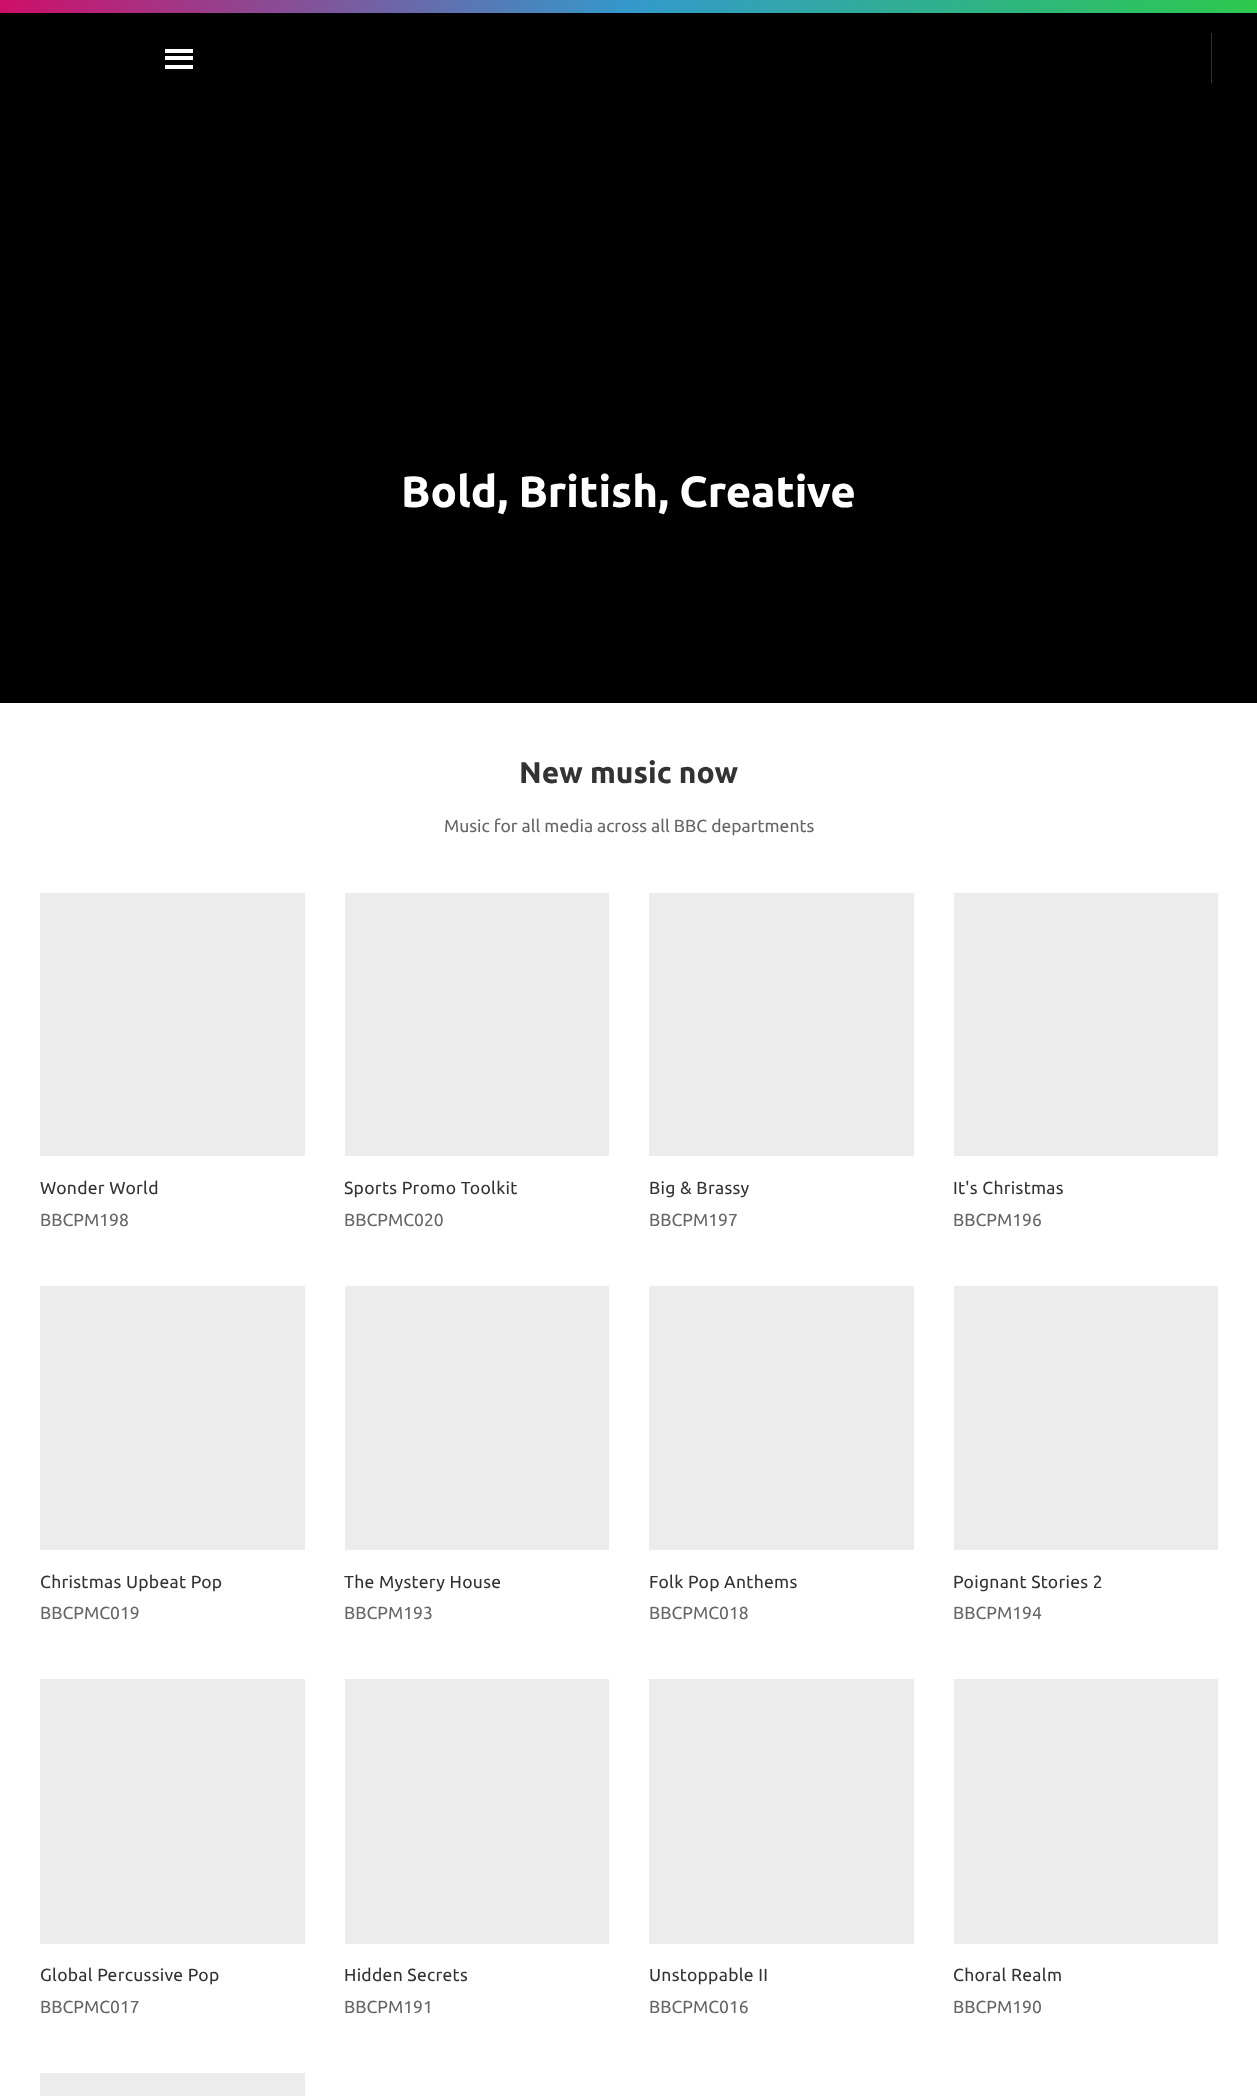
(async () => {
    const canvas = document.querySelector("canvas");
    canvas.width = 1257;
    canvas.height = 2096;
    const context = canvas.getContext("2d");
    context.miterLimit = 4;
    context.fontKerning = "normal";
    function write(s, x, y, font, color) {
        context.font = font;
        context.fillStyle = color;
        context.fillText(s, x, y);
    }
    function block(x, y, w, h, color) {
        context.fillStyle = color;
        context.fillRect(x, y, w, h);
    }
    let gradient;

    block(0, 0, 1257, 2096, "rgb(255, 255, 255)");
    gradient = context.createLinearGradient(0, 6.3, 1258, 6.2);
    gradient.addColorStop(0, "rgb(206, 15, 105)");
    gradient.addColorStop(0.5, "rgb(51, 153, 204)");
    gradient.addColorStop(1, "rgb(45, 200, 77)");
    context.fillStyle = gradient;
    context.fillRect(0, 0, 1257, 13);
    block(0, 13, 1257, 690, "rgb(0, 0, 0)");
    block(165, 56, 28, 4, "rgb(255, 255, 255)");
    block(165, 49, 28, 4, "rgb(255, 255, 255)");
    block(165, 65, 28, 4, "rgb(255, 255, 255)");
    block(1211, 33, 1, 50, "rgb(51, 51, 51)");
    write("Bold, British, Creative", 401, 507, "bold 43.75px Ubuntu", "rgb(255, 255, 255)");
    write("New music now", 519, 783, "bold 30px Ubuntu", "rgb(51, 51, 51)");
    write("Music for all media across all BBC departments", 444, 832, "17.5px Ubuntu", "rgb(102, 102, 102)");
    block(40, 893, 265, 263, "rgb(236, 236, 236)");
    context.letterSpacing = "0.3px";
    write("Wonder World", 40, 1194, "17.5px Ubuntu", "rgb(51, 51, 51)");
    context.letterSpacing = "0px";
    write("BBCPM198", 40, 1226, "17.5px Ubuntu", "rgb(102, 102, 102)");
    block(345, 893, 264, 263, "rgb(236, 236, 236)");
    context.letterSpacing = "0.3px";
    write("Sports Promo Toolkit", 344, 1194, "17.5px Ubuntu", "rgb(51, 51, 51)");
    context.letterSpacing = "0px";
    write("BBCPMC020", 344, 1226, "17.5px Ubuntu", "rgb(102, 102, 102)");
    block(649, 893, 265, 263, "rgb(236, 236, 236)");
    context.letterSpacing = "0.3px";
    write("Big & Brassy", 649, 1194, "17.5px Ubuntu", "rgb(51, 51, 51)");
    context.letterSpacing = "0px";
    write("BBCPM197", 649, 1226, "17.5px Ubuntu", "rgb(102, 102, 102)");
    block(954, 893, 264, 263, "rgb(236, 236, 236)");
    context.letterSpacing = "0.3px";
    write("It's Christmas", 953, 1194, "17.5px Ubuntu", "rgb(51, 51, 51)");
    context.letterSpacing = "0px";
    write("BBCPM196", 953, 1226, "17.5px Ubuntu", "rgb(102, 102, 102)");
    block(40, 1286, 265, 264, "rgb(236, 236, 236)");
    context.letterSpacing = "0.3px";
    write("Christmas Upbeat Pop", 40, 1588, "17.5px Ubuntu", "rgb(51, 51, 51)");
    context.letterSpacing = "0px";
    write("BBCPMC019", 40, 1619, "17.5px Ubuntu", "rgb(102, 102, 102)");
    block(345, 1286, 264, 264, "rgb(236, 236, 236)");
    context.letterSpacing = "0.3px";
    write("The Mystery House", 344, 1588, "17.5px Ubuntu", "rgb(51, 51, 51)");
    context.letterSpacing = "0px";
    write("BBCPM193", 344, 1619, "17.5px Ubuntu", "rgb(102, 102, 102)");
    block(649, 1286, 265, 264, "rgb(236, 236, 236)");
    context.letterSpacing = "0.3px";
    write("Folk Pop Anthems", 649, 1588, "17.5px Ubuntu", "rgb(51, 51, 51)");
    context.letterSpacing = "0px";
    write("BBCPMC018", 649, 1619, "17.5px Ubuntu", "rgb(102, 102, 102)");
    block(954, 1286, 264, 264, "rgb(236, 236, 236)");
    context.letterSpacing = "0.3px";
    write("Poignant Stories 2", 953, 1588, "17.5px Ubuntu", "rgb(51, 51, 51)");
    context.letterSpacing = "0px";
    write("BBCPM194", 953, 1619, "17.5px Ubuntu", "rgb(102, 102, 102)");
    block(40, 1679, 265, 265, "rgb(236, 236, 236)");
    context.letterSpacing = "0.3px";
    write("Global Percussive Pop", 40, 1981, "17.5px Ubuntu", "rgb(51, 51, 51)");
    context.letterSpacing = "0px";
    write("BBCPMC017", 40, 2013, "17.5px Ubuntu", "rgb(102, 102, 102)");
    block(345, 1679, 264, 265, "rgb(236, 236, 236)");
    context.letterSpacing = "0.3px";
    write("Hidden Secrets", 344, 1981, "17.5px Ubuntu", "rgb(51, 51, 51)");
    context.letterSpacing = "0px";
    write("BBCPM191", 344, 2013, "17.5px Ubuntu", "rgb(102, 102, 102)");
    block(649, 1679, 265, 265, "rgb(236, 236, 236)");
    context.letterSpacing = "0.3px";
    write("Unstoppable II", 649, 1981, "17.5px Ubuntu", "rgb(51, 51, 51)");
    context.letterSpacing = "0px";
    write("BBCPMC016", 649, 2013, "17.5px Ubuntu", "rgb(102, 102, 102)");
    block(954, 1679, 264, 265, "rgb(236, 236, 236)");
    context.letterSpacing = "0.3px";
    write("Choral Realm", 953, 1981, "17.5px Ubuntu", "rgb(51, 51, 51)");
    context.letterSpacing = "0px";
    write("BBCPM190", 953, 2013, "17.5px Ubuntu", "rgb(102, 102, 102)");
    block(40, 2073, 265, 23, "rgb(236, 236, 236)");
})();
